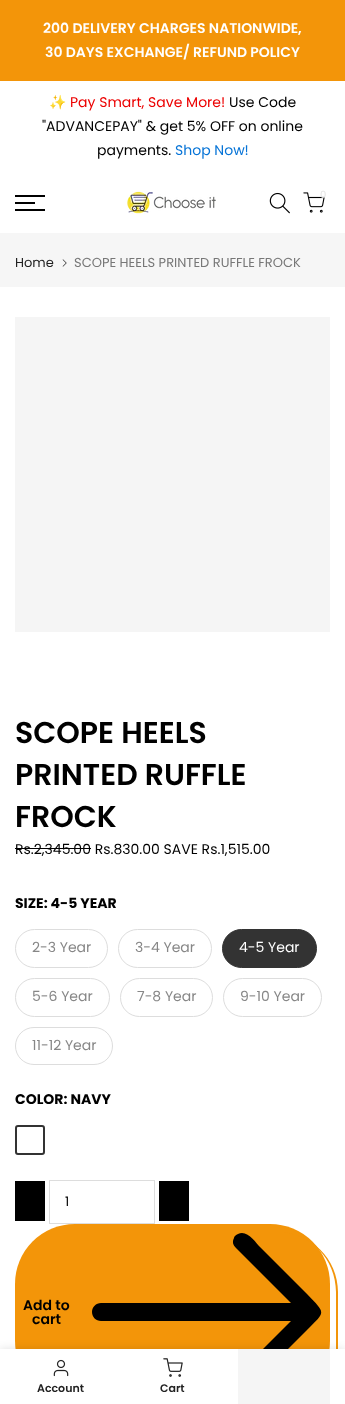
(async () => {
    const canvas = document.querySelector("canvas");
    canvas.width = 345;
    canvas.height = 1404;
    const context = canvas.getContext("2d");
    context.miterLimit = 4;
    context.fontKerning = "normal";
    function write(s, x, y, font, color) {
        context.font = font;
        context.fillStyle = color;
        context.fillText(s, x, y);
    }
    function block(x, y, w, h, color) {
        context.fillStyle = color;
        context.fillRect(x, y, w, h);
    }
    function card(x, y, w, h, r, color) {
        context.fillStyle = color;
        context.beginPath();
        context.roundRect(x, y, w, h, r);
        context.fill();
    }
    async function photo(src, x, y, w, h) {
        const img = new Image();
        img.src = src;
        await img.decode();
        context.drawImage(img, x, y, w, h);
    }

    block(0, 0, 345, 1404, "rgb(255, 255, 255)");
    block(0, 0, 345, 81, "rgb(243, 149, 9)");
    write("200 DELIVERY", 43, 33, "600 14px Poppins", "rgb(255, 255, 255)");
    write("CHARGES NATIONWIDE,", 139, 33, "600 14px Poppins", "rgb(255, 255, 255)");
    write("30 DAYS EXCHANGE/ REFUND POLICY", 45, 57, "600 14px Poppins", "rgb(255, 255, 255)");
    write("✨", 49, 107, "14px Noto Color Emoji", "rgb(0, 0, 0)");
    write("Pay Smart, Save More!", 70, 107, "14px Poppins", "rgb(236, 1, 1)");
    write("Use Code", 229, 107, "14px Poppins", "rgb(0, 0, 0)");
    write("\"ADVANCEPAY\" & get 5% OFF on online", 42, 131, "14px Poppins", "rgb(0, 0, 0)");
    write("payments.", 97, 155, "14px Poppins", "rgb(0, 0, 0)");
    write("Shop Now!", 175, 155, "14px Poppins", "rgb(7, 116, 215)");
    block(15, 195, 30, 2, "rgb(0, 0, 0)");
    block(15, 202, 20, 2, "rgb(0, 0, 0)");
    block(15, 209, 30, 2, "rgb(0, 0, 0)");
    await photo("media/1.png", 127, 191, 89, 23);
    await photo("media/2.png", 269, 192, 21, 22);
    await photo("media/3.png", 303, 192, 22, 21);
    write("0", 320, 198, "10px Poppins", "rgb(226, 226, 226)");
    block(0, 233, 345, 54, "rgb(246, 246, 246)");
    write("Home", 15, 267, "13px Poppins", "rgb(34, 34, 34)");
    await photo("media/4.png", 62, 259, 5, 8);
    write("SCOPE HEELS PRINTED RUFFLE FROCK", 74, 267, "13px Poppins", "rgb(119, 119, 119)");
    block(15, 317, 315, 315, "rgb(245, 245, 245)");
    write("SCOPE HEELS", 15, 743, "600 30px Poppins", "rgb(0, 0, 0)");
    write("PRINTED RUFFLE", 15, 785, "600 30px Poppins", "rgb(0, 0, 0)");
    write("FROCK", 15, 827, "600 30px Poppins", "rgb(0, 0, 0)");
    write("Rs.2,345.00 Rs.830.00 SAVE Rs.1,515.00", 15, 854, "14px Poppins", "rgb(0, 0, 0)");
    block(15, 848, 76, 1, "rgb(0, 0, 0)");
    write("SIZE: 4-5 YEAR", 15, 908, "bold 14px Poppins", "rgb(0, 0, 0)");
    context.beginPath();
    context.roundRect(15.5, 929.5, 92, 38, 19);
    context.strokeStyle = "rgb(221, 221, 221)";
    context.stroke();
    write("2-3 Year", 32, 952, "14px Poppins", "rgb(135, 135, 135)");
    context.beginPath();
    context.roundRect(118.5, 929.5, 93, 38, 19);
    context.stroke();
    write("3-4 Year", 135, 952, "14px Poppins", "rgb(135, 135, 135)");
    context.fillStyle = "rgb(51, 51, 51)";
    context.beginPath();
    context.roundRect(222.5, 929.5, 94, 38, 19);
    context.fill();
    context.strokeStyle = "rgb(51, 51, 51)";
    context.stroke();
    write("4-5 Year", 239, 952, "14px Poppins", "rgb(255, 255, 255)");
    context.beginPath();
    context.roundRect(15.5, 978.5, 94, 38, 19);
    context.strokeStyle = "rgb(221, 221, 221)";
    context.stroke();
    write("5-6 Year", 32, 1001, "14px Poppins", "rgb(135, 135, 135)");
    context.beginPath();
    context.roundRect(120.5, 978.5, 92, 38, 19);
    context.stroke();
    write("7-8 Year", 137, 1001, "14px Poppins", "rgb(135, 135, 135)");
    context.beginPath();
    context.roundRect(223.5, 978.5, 98, 38, 19);
    context.stroke();
    write("9-10 Year", 240, 1001, "14px Poppins", "rgb(135, 135, 135)");
    context.beginPath();
    context.roundRect(15.5, 1027.5, 97, 37, 18.5);
    context.stroke();
    write("11-12 Year", 32, 1050, "14px Poppins", "rgb(135, 135, 135)");
    write("COLOR: NAVY", 15, 1104, "bold 14px Poppins", "rgb(0, 0, 0)");
    context.beginPath();
    context.roundRect(16, 1126, 28, 28, 2);
    context.strokeStyle = "rgb(51, 51, 51)";
    context.lineWidth = 2;
    context.stroke();
    block(15, 1181, 30, 40, "rgb(0, 0, 0)");
    context.strokeStyle = "rgb(221, 221, 221)";
    context.lineWidth = 1;
    context.strokeRect(49.5, 1180.5, 105, 43);
    write("1", 65, 1206, "13px Poppins", "rgb(0, 0, 0)");
    block(159, 1181, 30, 40, "rgb(0, 0, 0)");
    card(15, 1224, 315, 177, 60, "rgb(243, 149, 9)");
    context.beginPath();
    context.moveTo(83, 1232);
    context.lineTo(278, 1232);
    context.bezierCurveTo(311, 1232, 338, 1259, 338, 1292);
    context.lineTo(338, 1349);
    context.bezierCurveTo(338, 1382, 311, 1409, 278, 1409);
    context.lineTo(83, 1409);
    context.bezierCurveTo(50, 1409, 23, 1382, 23, 1349);
    context.lineTo(23, 1292);
    context.bezierCurveTo(23, 1259, 50, 1232, 83, 1232);
    context.closePath();
    context.moveTo(83, 1232);
    context.lineTo(278, 1232);
    context.bezierCurveTo(310, 1232, 336, 1259, 336, 1292);
    context.lineTo(336, 1349);
    context.bezierCurveTo(336, 1381, 310, 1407, 278, 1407);
    context.lineTo(83, 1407);
    context.bezierCurveTo(50, 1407, 23, 1381, 23, 1349);
    context.lineTo(23, 1292);
    context.bezierCurveTo(23, 1259, 50, 1232, 83, 1232);
    context.closePath();
    context.fill("evenodd");
    write("Add to", 23, 1310, "600 14px Poppins", "rgb(0, 0, 0)");
    write("cart", 32, 1324, "600 14px Poppins", "rgb(0, 0, 0)");
    context.beginPath();
    context.moveTo(234, 1238);
    context.bezierCurveTo(234, 1236, 236, 1235, 238, 1234);
    context.bezierCurveTo(247, 1229, 256, 1243, 260, 1247);
    context.lineTo(307, 1294);
    context.bezierCurveTo(326, 1314, 326, 1311, 307, 1330);
    context.lineTo(248, 1389);
    context.bezierCurveTo(241, 1396, 229, 1387, 234, 1378);
    context.lineTo(291, 1321);
    context.lineTo(101, 1321);
    context.bezierCurveTo(96, 1321, 92, 1317, 92, 1312);
    context.bezierCurveTo(92, 1307, 96, 1303, 101, 1303);
    context.lineTo(291, 1303);
    context.lineTo(236, 1248);
    context.bezierCurveTo(233, 1245, 232, 1242, 234, 1238);
    context.closePath();
    context.fill("evenodd");
    context.fillStyle = "rgba(0, 0, 0, 0.12)";
    context.filter = "blur(4.5px)";
    context.beginPath();
    context.rect(0, 1349, 345, 55);
    context.fill();
    context.filter = "none";
    block(0, 1349, 345, 55, "rgb(255, 255, 255)");
    await photo("media/5.png", 53, 1359, 16, 18);
    write("Account", 37, 1392, "600 11px Poppins", "rgb(34, 34, 34)");
    await photo("media/6.png", 163, 1358, 20, 19);
    write("Cart", 160, 1392, "600 11px Poppins", "rgb(34, 34, 34)");
    block(238, 1349, 92, 55, "rgb(245, 245, 245)");
})();
